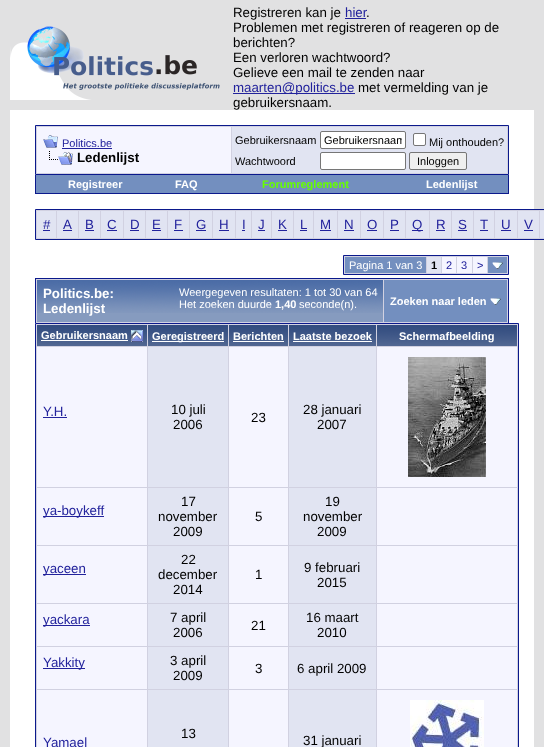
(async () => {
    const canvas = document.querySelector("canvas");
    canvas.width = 544;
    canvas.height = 747;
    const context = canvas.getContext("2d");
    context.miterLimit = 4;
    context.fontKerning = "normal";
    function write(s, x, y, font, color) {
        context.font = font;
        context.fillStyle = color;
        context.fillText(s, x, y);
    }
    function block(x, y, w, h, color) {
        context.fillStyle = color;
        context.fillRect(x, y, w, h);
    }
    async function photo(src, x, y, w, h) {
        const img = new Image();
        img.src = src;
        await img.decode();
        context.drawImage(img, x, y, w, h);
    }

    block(0, 0, 544, 747, "rgb(225, 225, 226)");
    await photo("media/1.png", 10, 26, 210, 74);
    write("Registreren kan je", 233, 17, "13.3px Liberation Sans", "rgb(0, 0, 0)");
    write("hier", 345, 17, "13.3px Liberation Sans", "rgb(34, 34, 156)");
    block(345, 18, 21, 1, "rgb(34, 34, 156)");
    write(".", 366, 17, "13.3px Liberation Sans", "rgb(0, 0, 0)");
    write("Problemen met registreren of reageren op de", 233, 32, "13.3px Liberation Sans", "rgb(0, 0, 0)");
    write("berichten?", 233, 47, "13.3px Liberation Sans", "rgb(0, 0, 0)");
    write("Een verloren wachtwoord?", 233, 62, "13.3px Liberation Sans", "rgb(0, 0, 0)");
    write("Gelieve een mail te zenden naar", 233, 77, "13.3px Liberation Sans", "rgb(0, 0, 0)");
    block(233, 93, 122, 1, "rgb(34, 34, 156)");
    write("maarten@politics.be", 233, 92, "13.3px Liberation Sans", "rgb(34, 34, 156)");
    write("met vermelding van je", 358, 92, "13.3px Liberation Sans", "rgb(0, 0, 0)");
    write("gebruikersnaam.", 233, 107, "13.3px Liberation Sans", "rgb(0, 0, 0)");
    block(10, 110, 524, 637, "rgb(255, 255, 255)");
    context.fillStyle = "rgb(209, 209, 225)";
    context.beginPath();
    context.rect(35.5, 125.5, 473, 49);
    context.fill();
    context.strokeStyle = "rgb(11, 25, 140)";
    context.stroke();
    block(37, 127, 194, 46, "rgb(245, 245, 255)");
    await photo("media/2.png", 43, 135, 15, 13);
    write("Politics.be", 62, 147, "11px Liberation Sans", "rgb(34, 34, 156)");
    block(62, 148, 50, 1, "rgb(34, 34, 156)");
    await photo("media/3.png", 49, 151, 24, 14);
    write("Ledenlijst", 77, 162, "bold 13.3px Liberation Sans", "rgb(0, 0, 0)");
    block(232, 127, 275, 46, "rgb(225, 228, 242)");
    write("Gebruikersnaam", 235, 144, "11px Liberation Sans", "rgb(0, 0, 0)");
    context.fillStyle = "rgb(255, 255, 255)";
    context.beginPath();
    context.roundRect(320.5, 131.5, 85, 17, 1.5);
    context.fill();
    context.strokeStyle = "rgb(118, 118, 118)";
    context.stroke();
    context.save();
    context.beginPath();
    context.rect(324, 134, 78, 12);
    context.clip();
    write("Gebruikersnaam", 324, 144, "11px Liberation Sans", "rgb(0, 0, 0)");
    context.restore();
    context.beginPath();
    context.roundRect(413.5, 133.5, 12, 12, 1.5);
    context.fill();
    context.stroke();
    write("Mij onthouden?", 429, 146, "11px Liberation Sans", "rgb(0, 0, 0)");
    write("Wachtwoord", 235, 165, "11px Liberation Sans", "rgb(0, 0, 0)");
    context.fillStyle = "rgb(255, 255, 255)";
    context.beginPath();
    context.roundRect(320.5, 152.5, 85, 17, 1.5);
    context.fill();
    context.stroke();
    context.fillStyle = "rgb(239, 239, 239)";
    context.beginPath();
    context.roundRect(409.5, 152.5, 57, 17, 1.5);
    context.fill();
    context.stroke();
    write("Inloggen", 417, 165, "11px Liberation Sans", "rgb(0, 0, 0)");
    block(508, 175, 1, 19, "rgb(11, 25, 140)");
    block(35, 193, 474, 1, "rgb(11, 25, 140)");
    block(35, 175, 1, 19, "rgb(11, 25, 140)");
    block(36, 175, 472, 18, "rgb(115, 143, 191)");
    write("Registreer", 68, 188, "bold 11px Liberation Sans", "rgb(255, 255, 255)");
    write("FAQ", 175, 188, "bold 11px Liberation Sans", "rgb(255, 255, 255)");
    write("Forumreglement", 262, 188, "bold 11px Liberation Sans", "rgb(102, 255, 0)");
    write("Ledenlijst", 426, 188, "bold 11px Liberation Sans", "rgb(255, 255, 255)");
    context.fillStyle = "rgb(209, 209, 225)";
    context.beginPath();
    context.rect(35.5, 209.5, 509, 30);
    context.fill();
    context.strokeStyle = "rgb(11, 25, 140)";
    context.stroke();
    block(37, 211, 19, 27, "rgb(225, 228, 242)");
    write("#", 43, 229, "13.3px Liberation Sans", "rgb(34, 34, 156)");
    block(43, 230, 7, 1, "rgb(34, 34, 156)");
    block(57, 211, 21, 27, "rgb(225, 228, 242)");
    write("A", 63, 229, "13.3px Liberation Sans", "rgb(34, 34, 156)");
    block(63, 230, 9, 1, "rgb(34, 34, 156)");
    block(79, 211, 21, 27, "rgb(225, 228, 242)");
    write("B", 85, 229, "13.3px Liberation Sans", "rgb(34, 34, 156)");
    block(85, 230, 9, 1, "rgb(34, 34, 156)");
    block(101, 211, 22, 27, "rgb(225, 228, 242)");
    write("C", 107, 229, "13.3px Liberation Sans", "rgb(34, 34, 156)");
    block(107, 230, 10, 1, "rgb(34, 34, 156)");
    block(124, 211, 21, 27, "rgb(225, 228, 242)");
    write("D", 130, 229, "13.3px Liberation Sans", "rgb(34, 34, 156)");
    block(130, 230, 9, 1, "rgb(34, 34, 156)");
    block(146, 211, 21, 27, "rgb(225, 228, 242)");
    write("E", 152, 229, "13.3px Liberation Sans", "rgb(34, 34, 156)");
    block(152, 230, 9, 1, "rgb(34, 34, 156)");
    block(168, 211, 21, 27, "rgb(225, 228, 242)");
    write("F", 174, 229, "13.3px Liberation Sans", "rgb(34, 34, 156)");
    block(174, 230, 9, 1, "rgb(34, 34, 156)");
    block(190, 211, 22, 27, "rgb(225, 228, 242)");
    write("G", 196, 229, "13.3px Liberation Sans", "rgb(34, 34, 156)");
    block(196, 230, 10, 1, "rgb(34, 34, 156)");
    block(213, 211, 22, 27, "rgb(225, 228, 242)");
    write("H", 219, 229, "13.3px Liberation Sans", "rgb(34, 34, 156)");
    block(219, 230, 10, 1, "rgb(34, 34, 156)");
    block(236, 211, 15, 27, "rgb(225, 228, 242)");
    write("I", 242, 229, "13.3px Liberation Sans", "rgb(34, 34, 156)");
    block(242, 230, 3, 1, "rgb(34, 34, 156)");
    block(252, 211, 19, 27, "rgb(225, 228, 242)");
    write("J", 258, 229, "13.3px Liberation Sans", "rgb(34, 34, 156)");
    block(258, 230, 7, 1, "rgb(34, 34, 156)");
    block(272, 211, 21, 27, "rgb(225, 228, 242)");
    write("K", 278, 229, "13.3px Liberation Sans", "rgb(34, 34, 156)");
    block(278, 230, 9, 1, "rgb(34, 34, 156)");
    block(294, 211, 19, 27, "rgb(225, 228, 242)");
    write("L", 300, 229, "13.3px Liberation Sans", "rgb(34, 34, 156)");
    block(300, 230, 7, 1, "rgb(34, 34, 156)");
    block(314, 211, 23, 27, "rgb(225, 228, 242)");
    write("M", 320, 229, "13.3px Liberation Sans", "rgb(34, 34, 156)");
    block(320, 230, 11, 1, "rgb(34, 34, 156)");
    block(338, 211, 22, 27, "rgb(225, 228, 242)");
    write("N", 344, 229, "13.3px Liberation Sans", "rgb(34, 34, 156)");
    block(344, 230, 10, 1, "rgb(34, 34, 156)");
    block(361, 211, 22, 27, "rgb(225, 228, 242)");
    write("O", 367, 229, "13.3px Liberation Sans", "rgb(34, 34, 156)");
    block(367, 230, 10, 1, "rgb(34, 34, 156)");
    block(384, 211, 21, 27, "rgb(225, 228, 242)");
    write("P", 390, 229, "13.3px Liberation Sans", "rgb(34, 34, 156)");
    block(390, 230, 9, 1, "rgb(34, 34, 156)");
    block(406, 211, 23, 27, "rgb(225, 228, 242)");
    block(412, 230, 11, 1, "rgb(34, 34, 156)");
    write("Q", 412, 229, "13.3px Liberation Sans", "rgb(34, 34, 156)");
    block(430, 211, 21, 27, "rgb(225, 228, 242)");
    write("R", 436, 229, "13.3px Liberation Sans", "rgb(34, 34, 156)");
    block(436, 230, 9, 1, "rgb(34, 34, 156)");
    block(452, 211, 21, 27, "rgb(225, 228, 242)");
    write("S", 458, 229, "13.3px Liberation Sans", "rgb(34, 34, 156)");
    block(458, 230, 9, 1, "rgb(34, 34, 156)");
    block(474, 211, 20, 27, "rgb(225, 228, 242)");
    write("T", 480, 229, "13.3px Liberation Sans", "rgb(34, 34, 156)");
    block(480, 230, 8, 1, "rgb(34, 34, 156)");
    block(495, 211, 22, 27, "rgb(225, 228, 242)");
    write("U", 501, 229, "13.3px Liberation Sans", "rgb(34, 34, 156)");
    block(501, 230, 10, 1, "rgb(34, 34, 156)");
    block(518, 211, 21, 27, "rgb(225, 228, 242)");
    write("V", 524, 229, "13.3px Liberation Sans", "rgb(34, 34, 156)");
    block(524, 230, 9, 1, "rgb(34, 34, 156)");
    block(540, 211, 4, 27, "rgb(225, 228, 242)");
    context.fillStyle = "rgb(209, 209, 225)";
    context.beginPath();
    context.rect(343.5, 255.5, 165, 19);
    context.fill();
    context.stroke();
    block(345, 257, 81, 16, "rgb(115, 143, 191)");
    write("Pagina 1 van 3", 349, 269, "11px Liberation Sans", "rgb(255, 255, 255)");
    block(427, 257, 14, 16, "rgb(225, 228, 242)");
    write("1", 431, 269, "bold 11px Liberation Sans", "rgb(0, 0, 0)");
    block(442, 257, 14, 16, "rgb(245, 245, 255)");
    write("2", 446, 269, "11px Liberation Sans", "rgb(34, 34, 156)");
    block(457, 257, 15, 16, "rgb(245, 245, 255)");
    write("3", 461, 269, "11px Liberation Sans", "rgb(34, 34, 156)");
    block(473, 257, 14, 16, "rgb(245, 245, 255)");
    write(">", 477, 269, "11px Liberation Sans", "rgb(34, 34, 156)");
    block(488, 257, 19, 16, "rgb(115, 143, 191)");
    await photo("media/4.png", 492, 262, 11, 7);
    block(36, 279, 472, 44, "rgb(209, 209, 225)");
    block(35, 278, 474, 1, "rgb(11, 25, 140)");
    block(508, 278, 1, 45, "rgb(11, 25, 140)");
    block(35, 278, 1, 45, "rgb(11, 25, 140)");
    block(37, 313, 346, 9, "rgb(134, 155, 191)");
    await photo("media/5.png", 37, 280, 346, 33);
    write("Politics.be:", 43, 298, "bold 13.3px Liberation Sans", "rgb(255, 255, 255)");
    write("Weergegeven resultaten: 1 tot 30 van 64", 179, 296, "11px Liberation Sans", "rgb(255, 255, 255)");
    write("Het zoeken duurde", 179, 308, "11px Liberation Sans", "rgb(255, 255, 255)");
    write("1,40", 275, 308, "bold 11px Liberation Sans", "rgb(255, 255, 255)");
    write("seconde(n).", 299, 308, "11px Liberation Sans", "rgb(255, 255, 255)");
    write("Ledenlijst", 43, 313, "bold 13.3px Liberation Sans", "rgb(255, 255, 255)");
    block(384, 280, 123, 42, "rgb(115, 143, 191)");
    write("Zoeken naar leden", 390, 305, "bold 11px Liberation Sans", "rgb(255, 255, 255)");
    await photo("media/4.png", 490, 298, 11, 7);
    context.fillStyle = "rgb(209, 209, 225)";
    context.beginPath();
    context.rect(35.5, 323.5, 483, 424);
    context.fill();
    context.stroke();
    await photo("media/6.png", 37, 325, 110, 21);
    write("Gebruikersnaam", 41, 339, "bold 11px Liberation Sans", "rgb(255, 255, 255)");
    block(41, 340, 87, 1, "rgb(255, 255, 255)");
    await photo("media/7.png", 131, 330, 12, 12);
    await photo("media/8.png", 148, 325, 80, 21);
    block(152, 341, 72, 1, "rgb(255, 255, 255)");
    write("Geregistreerd", 152, 340, "bold 11px Liberation Sans", "rgb(255, 255, 255)");
    await photo("media/9.png", 229, 325, 59, 21);
    write("Berichten", 233, 340, "bold 11px Liberation Sans", "rgb(255, 255, 255)");
    block(233, 341, 51, 1, "rgb(255, 255, 255)");
    await photo("media/10.png", 289, 325, 87, 21);
    write("Laatste bezoek", 293, 340, "bold 11px Liberation Sans", "rgb(255, 255, 255)");
    block(293, 341, 79, 1, "rgb(255, 255, 255)");
    await photo("media/11.png", 377, 325, 140, 21);
    write("Schermafbeelding", 399, 340, "bold 11px Liberation Sans", "rgb(255, 255, 255)");
    block(37, 347, 110, 140, "rgb(245, 245, 255)");
    write("Y.H.", 43, 416, "13.3px Liberation Sans", "rgb(34, 34, 156)");
    block(43, 417, 24, 1, "rgb(34, 34, 156)");
    block(148, 347, 80, 140, "rgb(225, 228, 242)");
    write("10 juli", 171, 414, "13.3px Liberation Sans", "rgb(0, 0, 0)");
    write("2006", 173, 429, "13.3px Liberation Sans", "rgb(0, 0, 0)");
    block(289, 347, 87, 140, "rgb(225, 228, 242)");
    write("28 januari", 303, 414, "13.3px Liberation Sans", "rgb(0, 0, 0)");
    write("2007", 317, 429, "13.3px Liberation Sans", "rgb(0, 0, 0)");
    block(377, 347, 140, 140, "rgb(245, 245, 255)");
    await photo("media/12.png", 408, 357, 78, 120);
    block(229, 347, 59, 140, "rgb(245, 245, 255)");
    write("23", 251, 422, "13.3px Liberation Sans", "rgb(0, 0, 0)");
    block(37, 488, 110, 57, "rgb(245, 245, 255)");
    block(43, 516, 61, 1, "rgb(34, 34, 156)");
    write("ya-boykeff", 43, 515, "13.3px Liberation Sans", "rgb(34, 34, 156)");
    block(148, 488, 80, 57, "rgb(225, 228, 242)");
    write("17", 181, 506, "13.3px Liberation Sans", "rgb(0, 0, 0)");
    write("november", 158, 521, "13.3px Liberation Sans", "rgb(0, 0, 0)");
    write("2009", 173, 536, "13.3px Liberation Sans", "rgb(0, 0, 0)");
    block(229, 488, 59, 57, "rgb(245, 245, 255)");
    write("5", 255, 521, "13.3px Liberation Sans", "rgb(0, 0, 0)");
    block(289, 488, 87, 57, "rgb(225, 228, 242)");
    write("19", 325, 506, "13.3px Liberation Sans", "rgb(0, 0, 0)");
    write("november", 303, 521, "13.3px Liberation Sans", "rgb(0, 0, 0)");
    write("2009", 317, 536, "13.3px Liberation Sans", "rgb(0, 0, 0)");
    block(377, 488, 140, 57, "rgb(245, 245, 255)");
    block(37, 546, 110, 57, "rgb(245, 245, 255)");
    block(43, 574, 43, 1, "rgb(34, 34, 156)");
    write("yaceen", 43, 573, "13.3px Liberation Sans", "rgb(34, 34, 156)");
    block(148, 546, 80, 57, "rgb(225, 228, 242)");
    write("22", 181, 564, "13.3px Liberation Sans", "rgb(0, 0, 0)");
    write("december", 158, 579, "13.3px Liberation Sans", "rgb(0, 0, 0)");
    write("2014", 173, 594, "13.3px Liberation Sans", "rgb(0, 0, 0)");
    block(229, 546, 59, 57, "rgb(245, 245, 255)");
    write("1", 255, 579, "13.3px Liberation Sans", "rgb(0, 0, 0)");
    block(289, 546, 87, 57, "rgb(225, 228, 242)");
    write("9 februari", 304, 572, "13.3px Liberation Sans", "rgb(0, 0, 0)");
    write("2015", 317, 587, "13.3px Liberation Sans", "rgb(0, 0, 0)");
    block(377, 546, 140, 57, "rgb(245, 245, 255)");
    block(37, 604, 110, 42, "rgb(245, 245, 255)");
    block(43, 625, 47, 1, "rgb(34, 34, 156)");
    write("yackara", 43, 624, "13.3px Liberation Sans", "rgb(34, 34, 156)");
    block(148, 604, 80, 42, "rgb(225, 228, 242)");
    write("7 april", 170, 622, "13.3px Liberation Sans", "rgb(0, 0, 0)");
    write("2006", 173, 637, "13.3px Liberation Sans", "rgb(0, 0, 0)");
    block(229, 604, 59, 42, "rgb(245, 245, 255)");
    write("21", 251, 630, "13.3px Liberation Sans", "rgb(0, 0, 0)");
    block(289, 604, 87, 42, "rgb(225, 228, 242)");
    write("16 maart", 306, 622, "13.3px Liberation Sans", "rgb(0, 0, 0)");
    write("2010", 317, 637, "13.3px Liberation Sans", "rgb(0, 0, 0)");
    block(377, 604, 140, 42, "rgb(245, 245, 255)");
    block(37, 647, 110, 42, "rgb(245, 245, 255)");
    block(43, 668, 42, 1, "rgb(34, 34, 156)");
    write("Yakkity", 43, 667, "13.3px Liberation Sans", "rgb(34, 34, 156)");
    block(148, 647, 80, 42, "rgb(225, 228, 242)");
    write("3 april", 170, 665, "13.3px Liberation Sans", "rgb(0, 0, 0)");
    write("2009", 173, 680, "13.3px Liberation Sans", "rgb(0, 0, 0)");
    block(229, 647, 59, 42, "rgb(245, 245, 255)");
    write("3", 255, 673, "13.3px Liberation Sans", "rgb(0, 0, 0)");
    block(289, 647, 87, 42, "rgb(225, 228, 242)");
    write("6 april 2009", 297, 673, "13.3px Liberation Sans", "rgb(0, 0, 0)");
    block(377, 647, 140, 42, "rgb(245, 245, 255)");
    block(148, 690, 80, 57, "rgb(225, 228, 242)");
    write("13", 181, 738, "13.3px Liberation Sans", "rgb(0, 0, 0)");
    block(229, 690, 59, 57, "rgb(245, 245, 255)");
    block(377, 690, 140, 57, "rgb(245, 245, 255)");
    await photo("media/13.png", 410, 700, 74, 47);
    block(37, 690, 110, 57, "rgb(245, 245, 255)");
    write("Yamael", 43, 747, "13.3px Liberation Sans", "rgb(34, 34, 156)");
    block(289, 690, 87, 57, "rgb(225, 228, 242)");
    write("31 januari", 303, 745, "13.3px Liberation Sans", "rgb(0, 0, 0)");
})();
